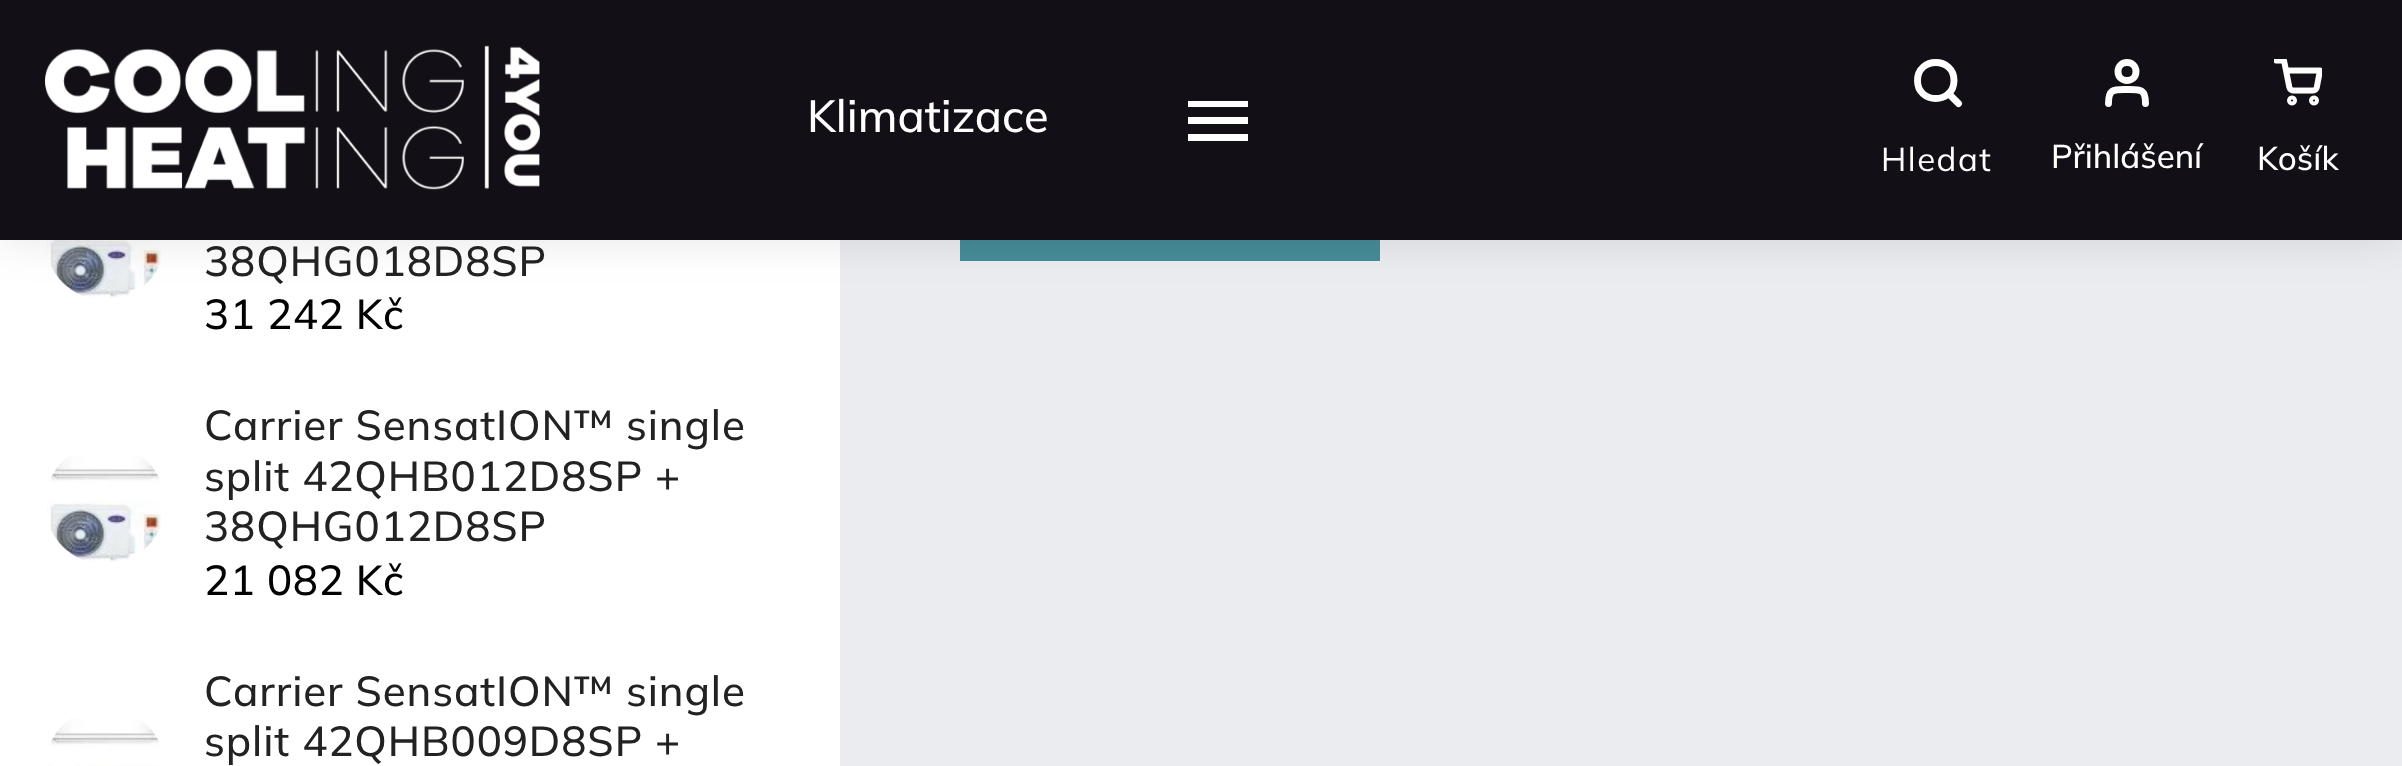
(async () => {
    const canvas = document.querySelector("canvas");
    canvas.width = 2402;
    canvas.height = 766;
    const context = canvas.getContext("2d");
    context.miterLimit = 4;
    context.fontKerning = "normal";
    function write(s, x, y, font, color) {
        context.font = font;
        context.fillStyle = color;
        context.fillText(s, x, y);
    }
    function block(x, y, w, h, color) {
        context.fillStyle = color;
        context.fillRect(x, y, w, h);
    }
    async function photo(src, x, y, w, h) {
        const img = new Image();
        img.src = src;
        await img.decode();
        context.drawImage(img, x, y, w, h);
    }

    block(0, 0, 2402, 766, "rgb(234, 236, 240)");
    block(0, 240, 840, 526, "rgb(255, 255, 255)");
    await photo("media/3.png", 47, 240, 115, 58);
    block(960, 240, 420, 21, "rgb(70, 140, 152)");
    context.fillStyle = "rgba(0, 0, 0, 0.1)";
    context.filter = "blur(22.5px)";
    context.beginPath();
    context.rect(0, 0, 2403, 240);
    context.fill();
    context.filter = "none";
    block(0, 0, 2402, 240, "rgb(18, 16, 22)");
    write("Klimatizace", 807, 132, "500 45px Mulish", "rgb(255, 255, 255)");
    context.beginPath();
    context.moveTo(1188, 141);
    context.lineTo(1248, 141);
    context.lineTo(1248, 134);
    context.lineTo(1188, 134);
    context.closePath();
    context.moveTo(1188, 124);
    context.lineTo(1248, 124);
    context.lineTo(1248, 117);
    context.lineTo(1188, 117);
    context.closePath();
    context.moveTo(1188, 101);
    context.lineTo(1188, 107);
    context.lineTo(1248, 107);
    context.lineTo(1248, 101);
    context.closePath();
    context.fill();
    await photo("media/1.png", 45, 45, 495, 145);
    context.beginPath();
    context.moveTo(1958.5, 103.5);
    context.lineTo(1948.5, 93.5);
    context.moveTo(1954, 80.5);
    context.bezierCurveTo(1954, 104.5, 1917.5, 104.5, 1917.5, 80.5);
    context.bezierCurveTo(1917.5, 56.5, 1954, 56.5, 1954, 80.5);
    context.closePath();
    context.strokeStyle = "rgb(255, 255, 255)";
    context.lineWidth = 6.9;
    context.lineCap = "round";
    context.lineJoin = "round";
    context.stroke();
    context.letterSpacing = "1.5px";
    write("Hledat", 1881, 171, "33px Mulish", "rgb(255, 255, 255)");
    context.beginPath();
    context.moveTo(2145.5, 103.5);
    context.bezierCurveTo(2145.5, 88.5, 2140, 89.5, 2127, 89.5);
    context.bezierCurveTo(2114, 89.5, 2108.5, 88.5, 2108.5, 103.5);
    context.moveTo(2136, 71.5);
    context.bezierCurveTo(2136, 83.5, 2118, 83.5, 2118, 71.5);
    context.bezierCurveTo(2118, 59.5, 2136, 59.5, 2136, 71.5);
    context.closePath();
    context.stroke();
    context.letterSpacing = "0px";
    write("Přihlášení", 2051, 168, "500 33px Mulish", "rgb(255, 255, 255)");
    await photo("media/2.png", 2274, 59, 48, 47);
    write("Košík", 2257, 170, "500 33px Mulish", "rgb(255, 255, 255)");
    context.letterSpacing = "0.9px";
    write("38QHG018D8SP", 204, 276, "500 42px Mulish", "rgb(34, 34, 34)");
    context.letterSpacing = "0.5px";
    write("31 242 Kč", 204, 329, "500 42px Mulish", "rgb(0, 0, 0)");
    await photo("media/4.png", 47, 455, 115, 107);
    context.letterSpacing = "0.9px";
    write("Carrier SensatION™ single", 204, 440, "500 42px Mulish", "rgb(34, 34, 34)");
    write("split 42QHB012D8SP +", 204, 491, "500 42px Mulish", "rgb(34, 34, 34)");
    write("38QHG012D8SP", 204, 541, "500 42px Mulish", "rgb(34, 34, 34)");
    context.letterSpacing = "0.5px";
    write("21 082 Kč", 204, 595, "500 42px Mulish", "rgb(0, 0, 0)");
    await photo("media/5.png", 49, 718, 110, 48);
    context.letterSpacing = "0.9px";
    write("Carrier SensatION™ single", 204, 706, "500 42px Mulish", "rgb(34, 34, 34)");
    write("split 42QHB009D8SP +", 204, 756, "500 42px Mulish", "rgb(34, 34, 34)");
})();
